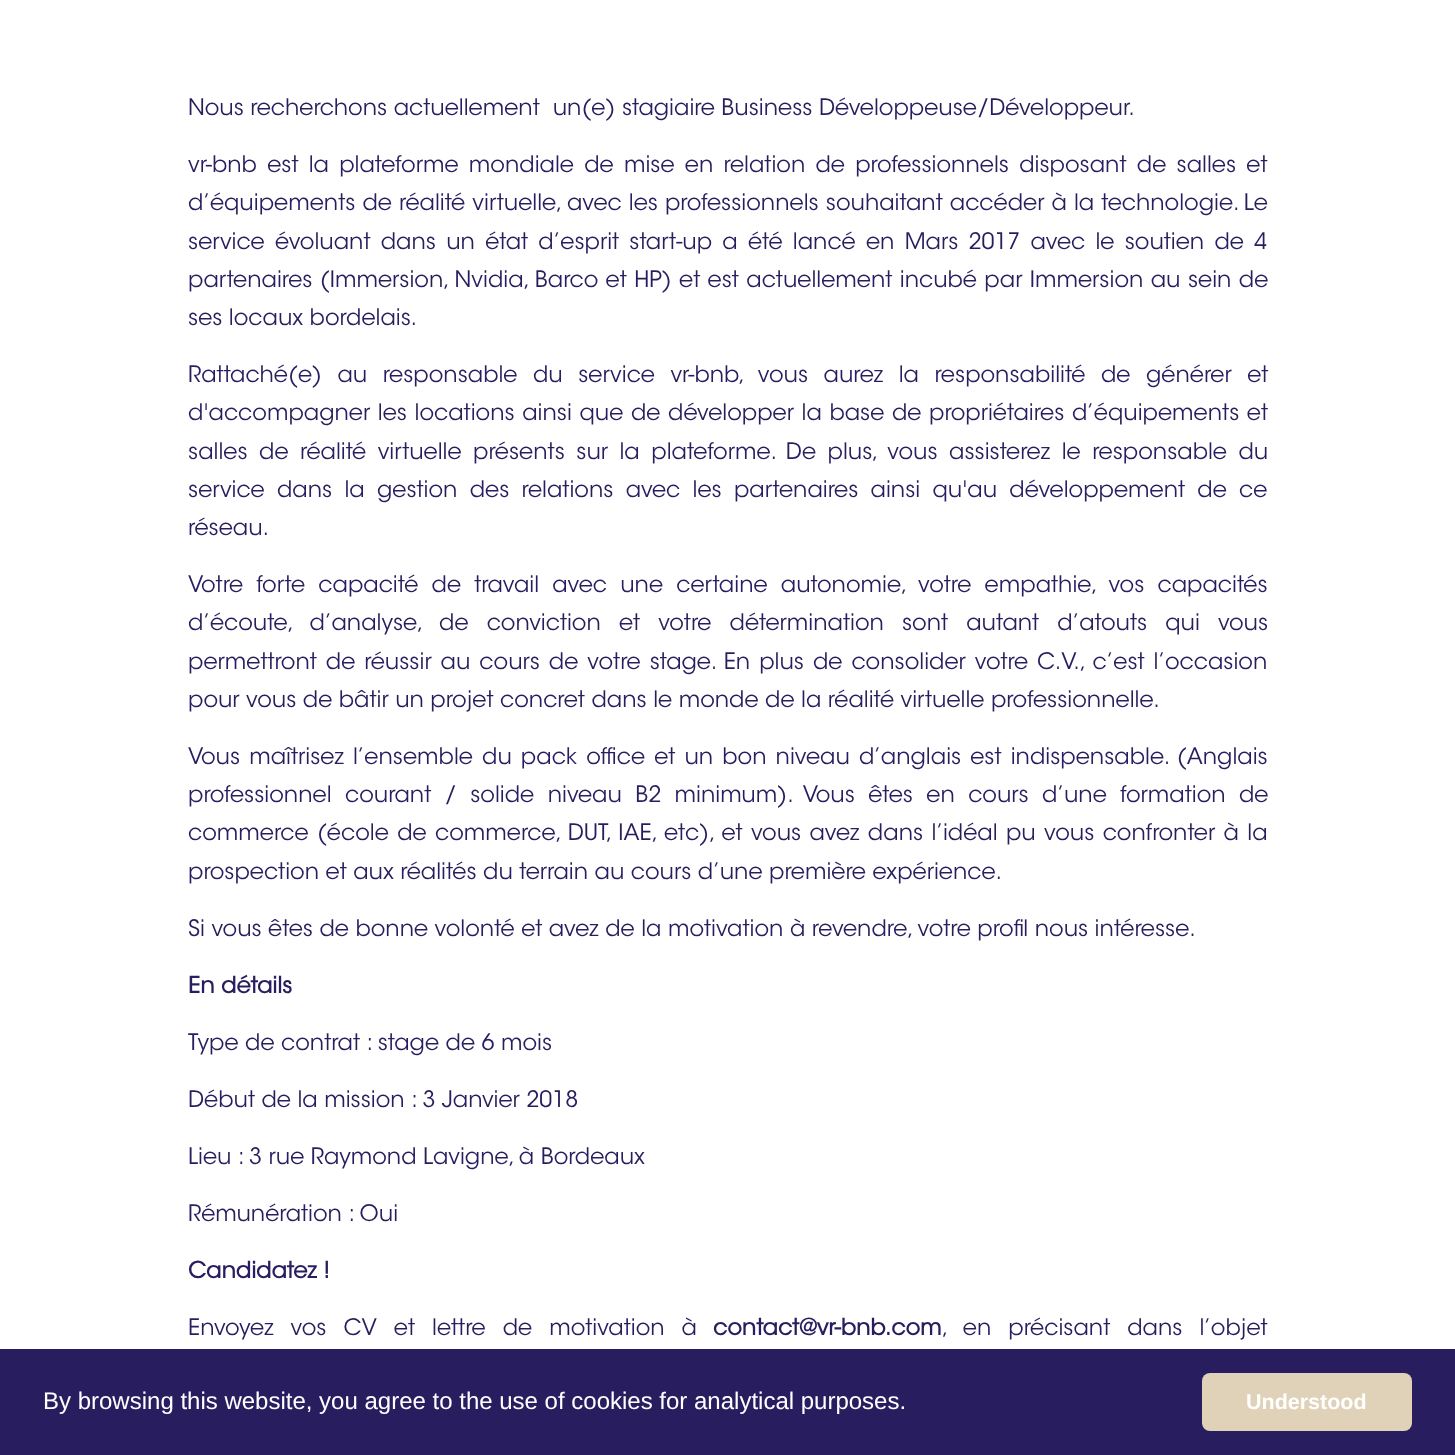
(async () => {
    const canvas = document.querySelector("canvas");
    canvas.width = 1455;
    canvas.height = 1455;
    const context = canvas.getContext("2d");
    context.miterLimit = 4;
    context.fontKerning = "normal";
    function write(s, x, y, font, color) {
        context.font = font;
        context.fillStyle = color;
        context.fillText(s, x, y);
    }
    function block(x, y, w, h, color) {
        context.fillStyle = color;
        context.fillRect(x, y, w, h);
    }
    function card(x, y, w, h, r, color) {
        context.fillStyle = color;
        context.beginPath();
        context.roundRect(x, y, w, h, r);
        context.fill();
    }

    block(0, 0, 1455, 1455, "rgb(255, 255, 255)");
    write("Nous recherchons actuellement  un(e) stagiaire Business Développeuse/Développeur.", 188, 115, "300 22.5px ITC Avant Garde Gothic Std", "rgb(40, 30, 95)");
    context.wordSpacing = "3.75px";
    write("vr-bnb est la plateforme mondiale de mise en relation de professionnels disposant de salles et", 188, 172, "300 22.5px ITC Avant Garde Gothic Std", "rgb(40, 30, 95)");
    context.wordSpacing = "0.6px";
    write("d’équipements de réalité virtuelle, avec les professionnels souhaitant accéder à la technologie. Le", 188, 210, "300 22.5px ITC Avant Garde Gothic Std", "rgb(40, 30, 95)");
    context.wordSpacing = "3.75px";
    write("service évoluant dans un état d’esprit start-up a été lancé en Mars 2017 avec le soutien de 4", 188, 249, "300 22.5px ITC Avant Garde Gothic Std", "rgb(40, 30, 95)");
    context.wordSpacing = "0.9px";
    write("partenaires (Immersion, Nvidia, Barco et HP) et est actuellement incubé par Immersion au sein de", 188, 287, "300 22.5px ITC Avant Garde Gothic Std", "rgb(40, 30, 95)");
    context.wordSpacing = "0px";
    write("ses locaux bordelais.", 188, 325, "300 22.5px ITC Avant Garde Gothic Std", "rgb(40, 30, 95)");
    context.wordSpacing = "9px";
    write("Rattaché(e) au responsable du service vr-bnb, vous aurez la responsabilité de générer et", 188, 382, "300 22.5px ITC Avant Garde Gothic Std", "rgb(40, 30, 95)");
    context.wordSpacing = "1.1px";
    write("d'accompagner les locations ainsi que de développer la base de propriétaires d’équipements et", 188, 420, "300 22.5px ITC Avant Garde Gothic Std", "rgb(40, 30, 95)");
    context.wordSpacing = "5px";
    write("salles de réalité virtuelle présents sur la plateforme. De plus, vous assisterez le responsable du", 188, 459, "300 22.5px ITC Avant Garde Gothic Std", "rgb(40, 30, 95)");
    context.wordSpacing = "5.75px";
    write("service dans la gestion des relations avec les partenaires ainsi qu'au développement de ce", 188, 497, "300 22.5px ITC Avant Garde Gothic Std", "rgb(40, 30, 95)");
    context.wordSpacing = "0px";
    write("réseau.", 188, 535, "300 22.5px ITC Avant Garde Gothic Std", "rgb(40, 30, 95)");
    context.wordSpacing = "6.75px";
    write("Votre forte capacité de travail avec une certaine autonomie, votre empathie, vos capacités", 188, 592, "300 22.5px ITC Avant Garde Gothic Std", "rgb(40, 30, 95)");
    context.wordSpacing = "11.6px";
    write("d’écoute, d’analyse, de conviction et votre détermination sont autant d’atouts qui vous", 188, 630, "300 22.5px ITC Avant Garde Gothic Std", "rgb(40, 30, 95)");
    context.wordSpacing = "2.5px";
    write("permettront de réussir au cours de votre stage. En plus de consolider votre C.V., c’est l’occasion", 188, 669, "300 22.5px ITC Avant Garde Gothic Std", "rgb(40, 30, 95)");
    context.wordSpacing = "0px";
    write("pour vous de bâtir un projet concret dans le monde de la réalité virtuelle professionnelle.", 188, 707, "300 22.5px ITC Avant Garde Gothic Std", "rgb(40, 30, 95)");
    context.wordSpacing = "2.6px";
    write("Vous maîtrisez l’ensemble du pack office et un bon niveau d’anglais est indispensable. (Anglais", 188, 764, "300 22.5px ITC Avant Garde Gothic Std", "rgb(40, 30, 95)");
    context.wordSpacing = "6.9px";
    write("professionnel courant / solide niveau B2 minimum). Vous êtes en cours d’une formation de", 188, 802, "300 22.5px ITC Avant Garde Gothic Std", "rgb(40, 30, 95)");
    context.wordSpacing = "1.9px";
    write("commerce (école de commerce, DUT, IAE, etc), et vous avez dans l’idéal pu vous confronter à la", 188, 840, "300 22.5px ITC Avant Garde Gothic Std", "rgb(40, 30, 95)");
    context.wordSpacing = "0px";
    write("prospection et aux réalités du terrain au cours d’une première expérience.", 188, 879, "300 22.5px ITC Avant Garde Gothic Std", "rgb(40, 30, 95)");
    write("Si vous êtes de bonne volonté et avez de la motivation à revendre, votre profil nous intéresse.", 188, 936, "300 22.5px ITC Avant Garde Gothic Std", "rgb(40, 30, 95)");
    write("En détails", 188, 993, "bold 22.5px ITC Avant Garde Gothic Std", "rgb(40, 30, 95)");
    write("Type de contrat : stage de 6 mois", 188, 1050, "300 22.5px ITC Avant Garde Gothic Std", "rgb(40, 30, 95)");
    write("Début de la mission : 3 Janvier 2018", 188, 1107, "300 22.5px ITC Avant Garde Gothic Std", "rgb(40, 30, 95)");
    write("Lieu : 3 rue Raymond Lavigne, à Bordeaux", 188, 1164, "300 22.5px ITC Avant Garde Gothic Std", "rgb(40, 30, 95)");
    write("Rémunération : Oui", 188, 1221, "300 22.5px ITC Avant Garde Gothic Std", "rgb(40, 30, 95)");
    write("Candidatez !", 188, 1278, "bold 22.5px ITC Avant Garde Gothic Std", "rgb(40, 30, 95)");
    context.wordSpacing = "10.5px";
    write("Envoyez vos CV et lettre de motivation à", 188, 1335, "300 22.5px ITC Avant Garde Gothic Std", "rgb(40, 30, 95)");
    context.wordSpacing = "0px";
    write("contact@vr-bnb.com", 713, 1335, "bold 22.5px ITC Avant Garde Gothic Std", "rgb(40, 30, 95)");
    context.wordSpacing = "10.5px";
    write(", en précisant dans l’objet", 942, 1335, "300 22.5px ITC Avant Garde Gothic Std", "rgb(40, 30, 95)");
    block(0, 1349, 1455, 106, "rgb(40, 30, 95)");
    context.wordSpacing = "0px";
    write("By browsing this website, you agree to the use of cookies for analytical purposes.", 43, 1409, "24px Liberation Sans", "rgb(255, 255, 255)");
    card(1202, 1373, 210, 58, 8, "rgb(224, 210, 184)");
    write("Understood", 1246, 1409, "bold 21.5px Liberation Sans", "rgb(255, 255, 255)");
})();
